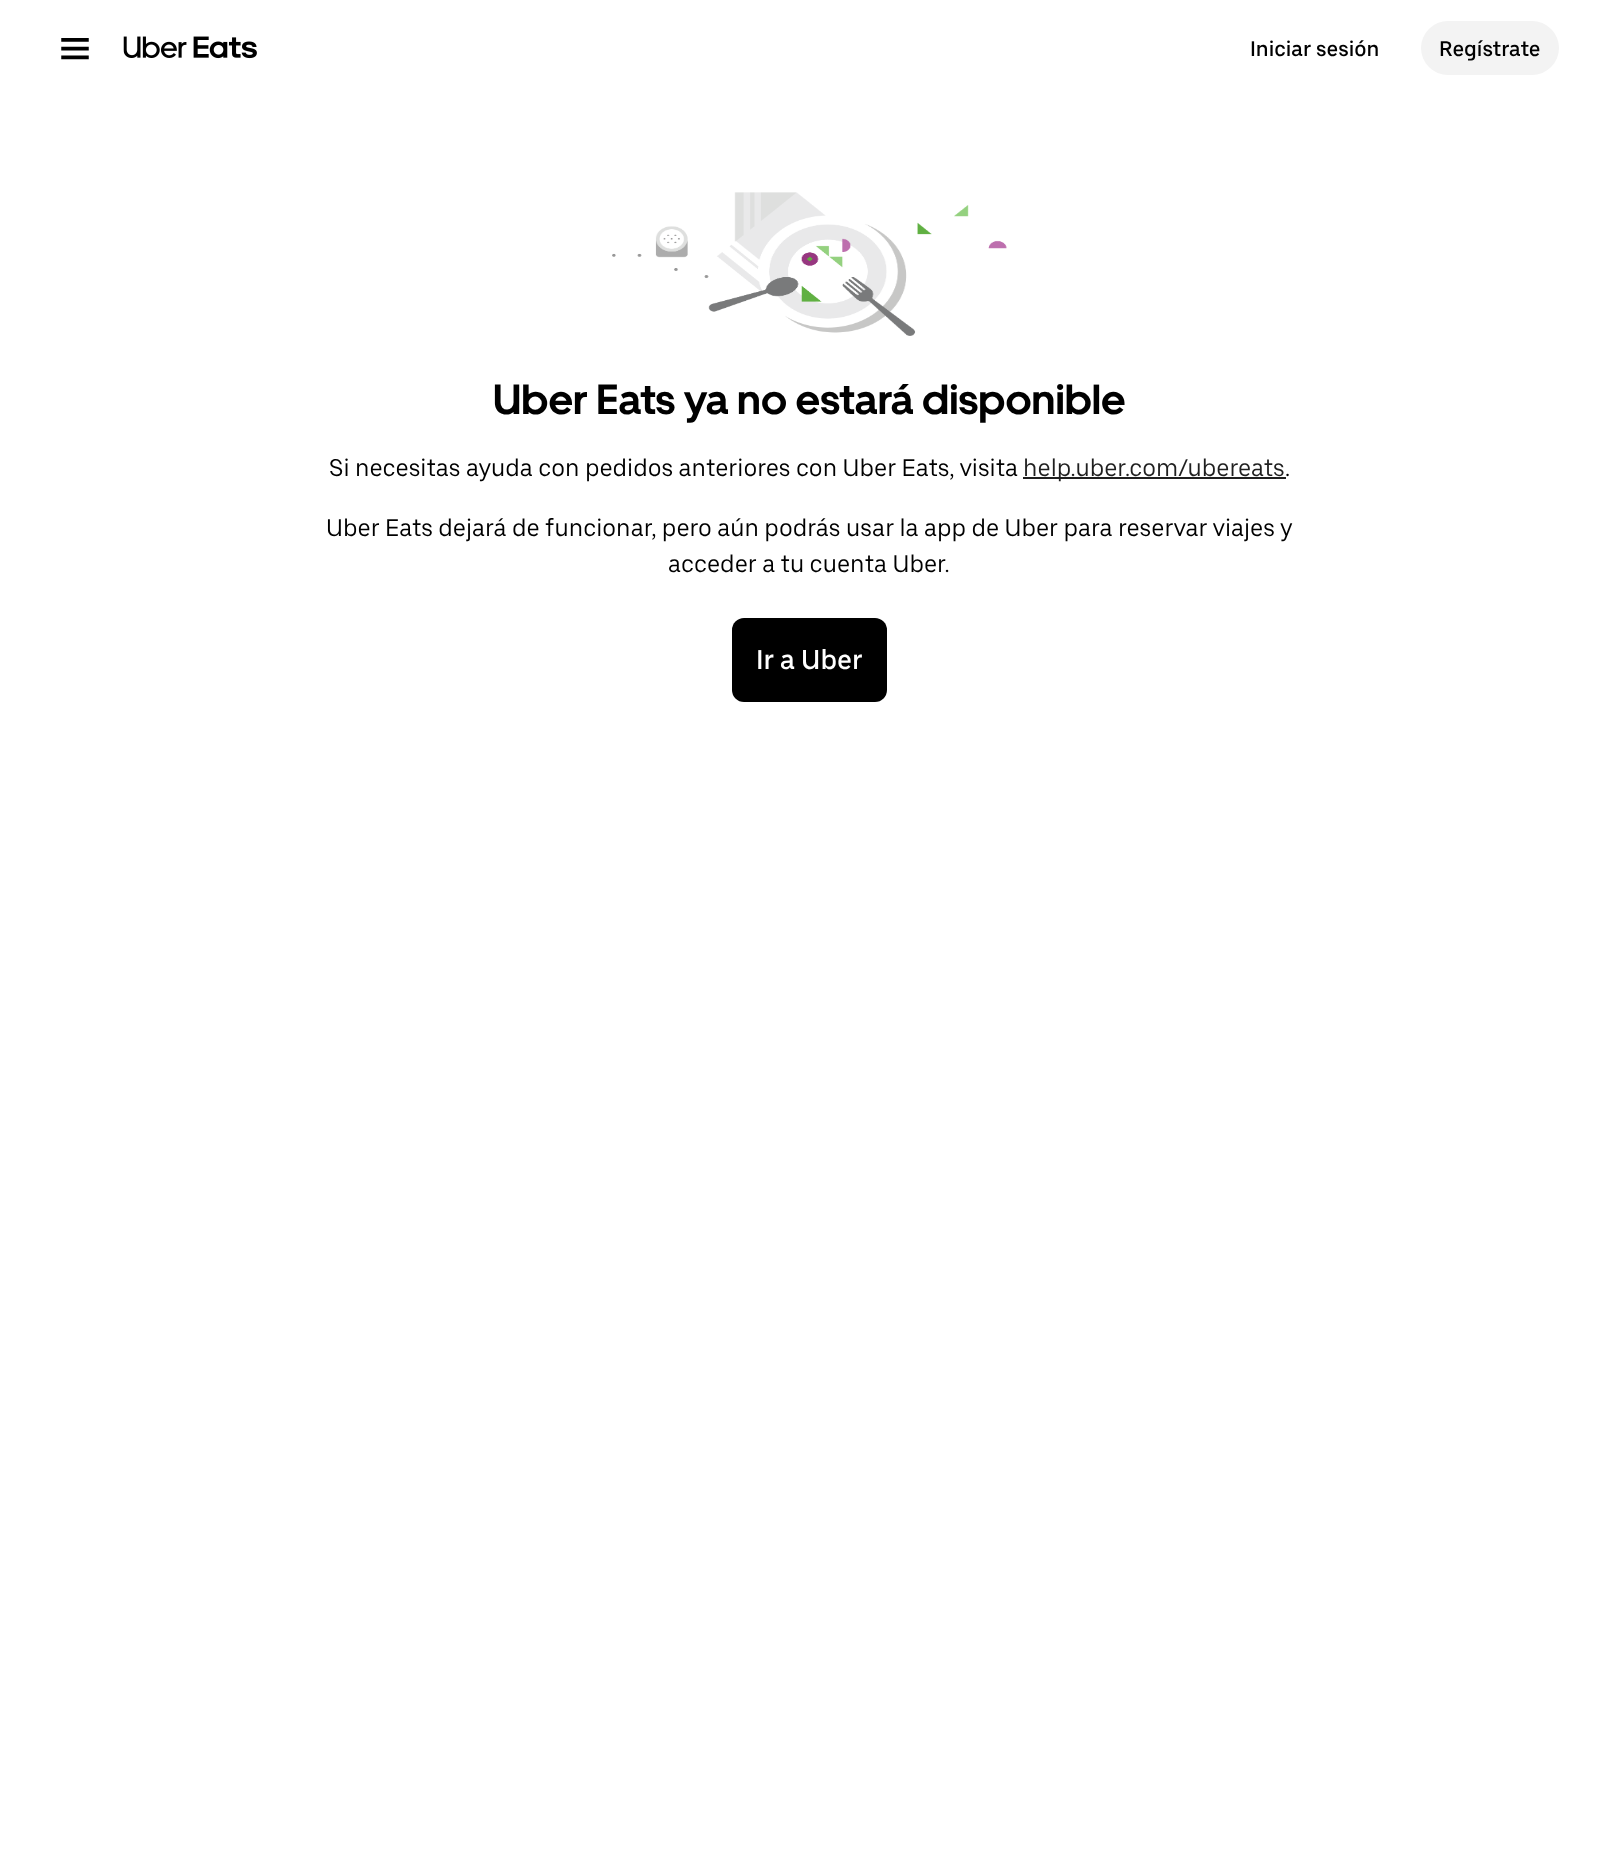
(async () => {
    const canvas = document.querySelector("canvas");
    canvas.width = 1618;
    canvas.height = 1856;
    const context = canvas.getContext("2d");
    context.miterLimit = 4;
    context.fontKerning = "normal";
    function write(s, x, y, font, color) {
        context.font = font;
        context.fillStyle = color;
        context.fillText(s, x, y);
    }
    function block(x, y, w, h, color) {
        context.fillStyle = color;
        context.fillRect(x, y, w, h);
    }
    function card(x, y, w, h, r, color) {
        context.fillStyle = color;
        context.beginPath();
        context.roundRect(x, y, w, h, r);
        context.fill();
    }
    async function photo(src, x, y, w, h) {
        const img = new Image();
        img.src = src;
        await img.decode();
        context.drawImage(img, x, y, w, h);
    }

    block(0, 0, 1618, 1856, "rgb(255, 255, 255)");
    await photo("media/1.png", 61, 38, 28, 22);
    await photo("media/2.png", 123, 36, 134, 23);
    write("Iniciar sesión", 1250, 56, "500 21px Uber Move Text", "rgb(0, 0, 0)");
    card(1421, 21, 138, 54, 27, "rgb(243, 243, 243)");
    write("Regístrate", 1439, 56, "500 21px Uber Move Text", "rgb(0, 0, 0)");
    await photo("media/3.png", 612, 192, 395, 144);
    write("Uber Eats ya no estará disponible", 493, 414, "bold 42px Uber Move", "rgb(0, 0, 0)");
    write("Si necesitas ayuda con pedidos anteriores con Uber Eats, visita", 329, 476, "24px Uber Move Text", "rgb(0, 0, 0)");
    block(1023, 477, 263, 2, "rgb(31, 31, 31)");
    write("help.uber.com/ubereats", 1023, 476, "24px Uber Move Text", "rgb(31, 31, 31)");
    write(".", 1285, 476, "24px Uber Move Text", "rgb(0, 0, 0)");
    write("Uber Eats dejará de funcionar, pero aún podrás usar la app de Uber para reservar viajes y", 326, 536, "24px Uber Move Text", "rgb(0, 0, 0)");
    write("acceder a tu cuenta Uber.", 668, 572, "24px Uber Move Text", "rgb(0, 0, 0)");
    card(732, 618, 155, 84, 12, "rgb(0, 0, 0)");
    write("Ir a Uber", 756, 669, "500 27px Uber Move Text", "rgb(255, 255, 255)");
})();
